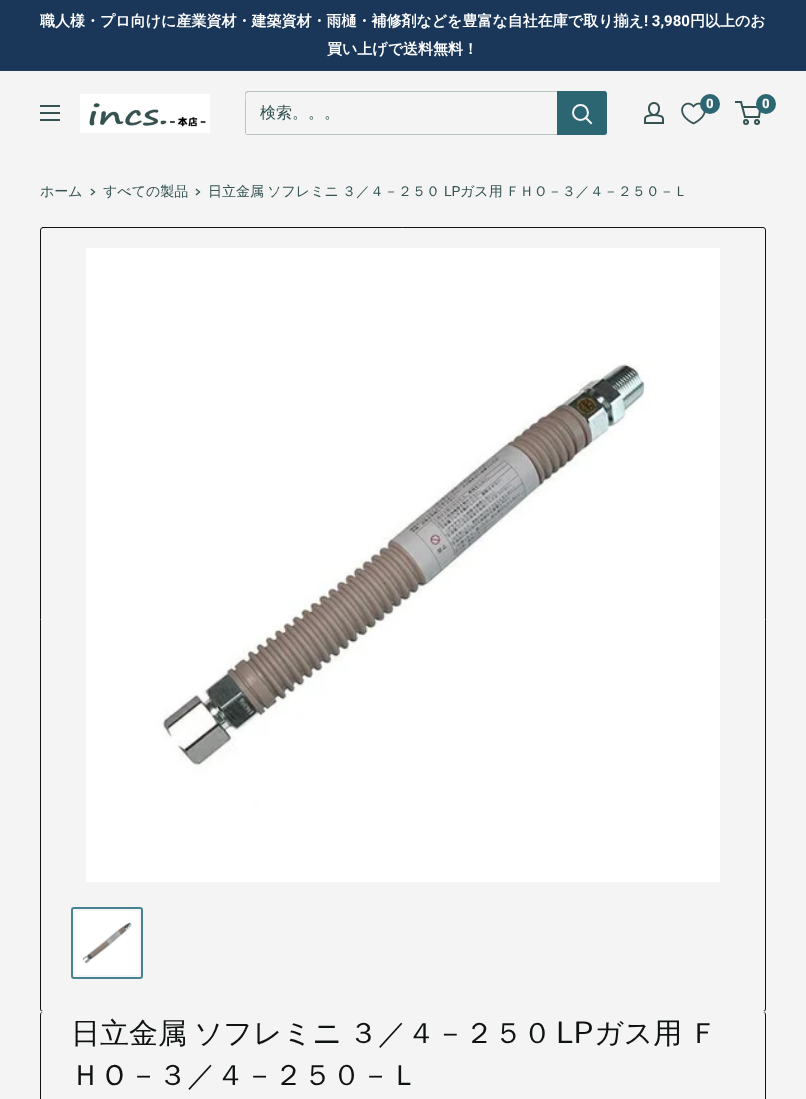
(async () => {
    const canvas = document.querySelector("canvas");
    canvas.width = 806;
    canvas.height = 1099;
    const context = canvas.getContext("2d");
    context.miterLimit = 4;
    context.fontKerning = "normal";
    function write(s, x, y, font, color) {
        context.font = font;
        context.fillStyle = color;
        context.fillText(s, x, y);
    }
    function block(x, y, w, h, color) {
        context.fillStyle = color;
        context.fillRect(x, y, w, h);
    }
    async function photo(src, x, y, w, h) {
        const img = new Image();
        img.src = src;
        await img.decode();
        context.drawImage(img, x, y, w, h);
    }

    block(0, 0, 806, 1099, "rgb(244, 244, 244)");
    block(0, 0, 806, 70, "rgb(26, 55, 89)");
    block(0, 70, 806, 1, "rgb(34, 63, 87)");
    write("職人様・プロ向けに産業資材・建築資材・雨樋・補修剤などを豊富な自社在庫で取り揃え", 40, 26, "bold 15px WenQuanYi Zen Hei", "rgb(255, 255, 255)");
    write("! 3,980", 644, 26, "bold 15px Roboto", "rgb(255, 255, 255)");
    write("円以上のお", 690, 26, "bold 15px WenQuanYi Zen Hei", "rgb(255, 255, 255)");
    write("買い上げで送料無料！", 327, 54, "bold 15px WenQuanYi Zen Hei", "rgb(255, 255, 255)");
    await photo("media/1.png", 40, 105, 20, 16);
    await photo("media/2.png", 80, 94, 130, 39);
    context.fillStyle = "rgb(187, 196, 196)";
    context.beginPath();
    context.moveTo(246, 134);
    context.bezierCurveTo(246, 135, 247, 135, 248, 135);
    context.lineTo(604, 135);
    context.bezierCurveTo(606, 135, 607, 134, 607, 132);
    context.lineTo(607, 94);
    context.bezierCurveTo(607, 93, 607, 92, 606, 92);
    context.lineTo(606, 125);
    context.bezierCurveTo(606, 127, 608, 134, 603, 134);
    context.closePath();
    context.fill();
    context.beginPath();
    context.moveTo(249, 92);
    context.lineTo(606, 92);
    context.bezierCurveTo(606, 91, 605, 91, 604, 91);
    context.lineTo(248, 91);
    context.bezierCurveTo(246, 91, 245, 92, 245, 94);
    context.lineTo(245, 132);
    context.bezierCurveTo(245, 133, 245, 134, 246, 134);
    context.lineTo(246, 101);
    context.bezierCurveTo(246, 99, 244, 92, 249, 92);
    context.closePath();
    context.fill();
    write("検索。。。", 260, 118, "500 16px WenQuanYi Zen Hei", "rgb(53, 83, 83)");
    context.fillStyle = "rgb(44, 102, 115)";
    context.beginPath();
    context.roundRect(557, 91, 50, 44, [0, 3, 3, 0]);
    context.fill();
    context.beginPath();
    context.moveTo(591, 123);
    context.lineTo(586, 118);
    context.strokeStyle = "rgb(244, 244, 244)";
    context.lineWidth = 2;
    context.lineCap = "square";
    context.stroke();
    context.beginPath();
    context.arc(580.5, 112.5, 7.5, 0, Math.PI * 2);
    context.stroke();
    await photo("media/3.png", 644, 102, 20, 22);
    await photo("media/4.png", 681, 102, 25, 23);
    context.beginPath();
    context.arc(710, 104, 10, 0, Math.PI * 2);
    context.fill();
    write("0", 706, 108, "900 13px Roboto", "rgb(244, 244, 244)");
    context.beginPath();
    context.arc(746, 122, 2, 0, Math.PI * 2);
    context.strokeStyle = "rgb(53, 83, 83)";
    context.stroke();
    context.beginPath();
    context.arc(757, 122, 2, 0, Math.PI * 2);
    context.stroke();
    context.beginPath();
    context.moveTo(742.5, 107);
    context.lineTo(760.5, 107);
    context.lineTo(759, 117);
    context.lineTo(745, 117);
    context.lineTo(741, 102);
    context.lineTo(735, 102);
    context.lineCap = "butt";
    context.stroke();
    context.fillStyle = "rgb(44, 102, 115)";
    context.beginPath();
    context.arc(766, 104, 10, 0, Math.PI * 2);
    context.fill();
    write("0", 762, 108, "900 13px Roboto", "rgb(244, 244, 244)");
    write("ホーム", 40, 196, "500 14px WenQuanYi Zen Hei", "rgb(53, 83, 83)");
    context.beginPath();
    context.moveTo(91.5, 189.5);
    context.lineTo(94.5, 192);
    context.lineTo(91.5, 194.5);
    context.lineWidth = 1.3;
    context.lineCap = "square";
    context.stroke();
    write("すべての製品", 103, 196, "500 14px WenQuanYi Zen Hei", "rgb(53, 83, 83)");
    context.beginPath();
    context.moveTo(196.5, 189.5);
    context.lineTo(199.5, 192);
    context.lineTo(196.5, 194.5);
    context.stroke();
    context.wordSpacing = "-1px";
    write("日立金属 ソフレミニ ３／４－２５０", 208, 196, "500 14px WenQuanYi Zen Hei", "rgb(53, 83, 83)");
    context.wordSpacing = "0px";
    write("LP", 444, 196, "14px Roboto", "rgb(53, 83, 83)");
    context.wordSpacing = "-1px";
    write("ガス用 ＦＨＯ－３／４－２５０－Ｌ", 460, 196, "500 14px WenQuanYi Zen Hei", "rgb(53, 83, 83)");
    context.beginPath();
    context.roundRect(40.5, 227.5, 725, 784, 2.5);
    context.strokeStyle = "rgb(15, 18, 18)";
    context.lineWidth = 1;
    context.stroke();
    await photo("media/5.png", 86, 248, 634, 634);
    context.beginPath();
    context.roundRect(72, 908, 70, 70, 2);
    context.strokeStyle = "rgb(70, 131, 145)";
    context.lineWidth = 2;
    context.stroke();
    await photo("media/6.png", 75, 911, 64, 64);
    context.fillStyle = "rgb(244, 244, 244)";
    context.beginPath();
    context.moveTo(43, 1011);
    context.bezierCurveTo(41, 1011, 40, 1013, 40, 1015);
    context.bezierCurveTo(40, 1013, 41, 1012, 43, 1012);
    context.lineTo(763, 1012);
    context.bezierCurveTo(765, 1012, 766, 1013, 766, 1015);
    context.bezierCurveTo(766, 1013, 765, 1011, 763, 1011);
    context.closePath();
    context.fill();
    context.fillStyle = "rgb(15, 18, 18)";
    context.beginPath();
    context.moveTo(43, 1012);
    context.lineTo(763, 1012);
    context.bezierCurveTo(765, 1012, 766, 1013, 766, 1015);
    context.lineTo(766, 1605);
    context.bezierCurveTo(766, 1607, 765, 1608, 763, 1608);
    context.lineTo(43, 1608);
    context.bezierCurveTo(41, 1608, 40, 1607, 40, 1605);
    context.lineTo(40, 1015);
    context.bezierCurveTo(40, 1013, 41, 1012, 43, 1012);
    context.closePath();
    context.moveTo(43, 1012);
    context.lineTo(763, 1012);
    context.bezierCurveTo(764, 1012, 765, 1013, 765, 1015);
    context.lineTo(765, 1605);
    context.bezierCurveTo(765, 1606, 764, 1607, 763, 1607);
    context.lineTo(43, 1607);
    context.bezierCurveTo(42, 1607, 41, 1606, 41, 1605);
    context.lineTo(41, 1015);
    context.bezierCurveTo(41, 1013, 42, 1012, 43, 1012);
    context.closePath();
    context.fill("evenodd");
    context.wordSpacing = "-2px";
    write("日立金属 ソフレミニ ３／４－２５０", 71, 1043, "500 29px WenQuanYi Zen Hei", "rgb(15, 18, 18)");
    context.wordSpacing = "0px";
    write("LP", 556, 1043, "29px Libre Franklin", "rgb(15, 18, 18)");
    context.wordSpacing = "-2px";
    write("ガス用 Ｆ", 594, 1043, "500 29px WenQuanYi Zen Hei", "rgb(15, 18, 18)");
    context.wordSpacing = "0px";
    write("ＨＯ－３／４－２５０－Ｌ", 71, 1085, "500 29px WenQuanYi Zen Hei", "rgb(15, 18, 18)");
})();
